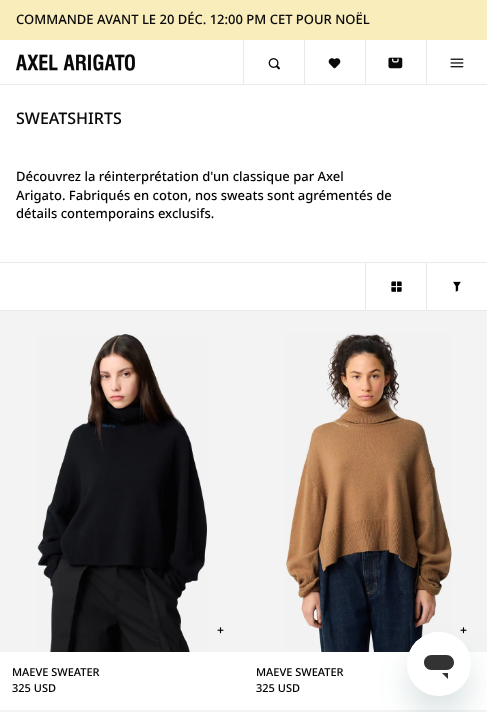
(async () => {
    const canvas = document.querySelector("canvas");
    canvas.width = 487;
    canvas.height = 712;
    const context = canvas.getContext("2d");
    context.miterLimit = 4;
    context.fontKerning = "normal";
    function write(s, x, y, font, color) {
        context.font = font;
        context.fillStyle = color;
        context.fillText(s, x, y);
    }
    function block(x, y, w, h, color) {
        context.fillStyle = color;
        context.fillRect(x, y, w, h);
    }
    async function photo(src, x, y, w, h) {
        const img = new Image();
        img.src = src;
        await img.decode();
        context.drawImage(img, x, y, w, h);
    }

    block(0, 0, 487, 712, "rgb(255, 255, 255)");
    block(0, 0, 487, 40, "rgb(250, 237, 188)");
    write("COMMANDE AVANT LE 20 DÉC. 12:00 PM CET POUR NOËL", 16, 24, "500 13px 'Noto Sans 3'", "rgb(9, 9, 9)");
    block(0, 84, 487, 1, "rgb(233, 233, 233)");
    await photo("media/1.png", 16, 54, 119, 17);
    block(243, 40, 1, 45, "rgb(233, 233, 233)");
    await photo("media/2.png", 268, 58, 12, 12);
    block(304, 40, 1, 45, "rgb(233, 233, 233)");
    await photo("media/3.png", 328, 58, 13, 11);
    block(365, 40, 1, 45, "rgb(233, 233, 233)");
    await photo("media/4.png", 388, 57, 15, 12);
    block(426, 40, 1, 45, "rgb(233, 233, 233)");
    await photo("media/5.png", 450, 58, 14, 10);
    write("SWEATSHIRTS", 16, 124, "500 16px Noto Sans", "rgb(9, 9, 9)");
    write("Découvrez la réinterprétation d'un classique par Axel", 16, 181, "500 13px 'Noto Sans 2'", "rgb(0, 0, 0)");
    write("Arigato. Fabriqués en coton, nos sweats sont agrémentés de", 16, 200, "500 13px 'Noto Sans 2'", "rgb(0, 0, 0)");
    write("détails contemporains exclusifs.", 16, 218, "500 13px 'Noto Sans 2'", "rgb(0, 0, 0)");
    block(0, 262, 487, 1, "rgb(233, 233, 233)");
    block(0, 310, 487, 1, "rgb(233, 233, 233)");
    block(365, 263, 1, 47, "rgb(233, 233, 233)");
    await photo("media/6.png", 391, 281, 11, 11);
    block(426, 263, 1, 47, "rgb(233, 233, 233)");
    await photo("media/7.png", 453, 281, 8, 11);
    block(0, 311, 487, 341, "rgb(243, 243, 243)");
    await photo("media/8.png", 217, 627, 7, 7);
    await photo("media/9.png", 37, 334, 171, 318);
    write("MAEVE SWEATER", 12, 676, "500 11px 'Noto Sans 3'", "rgb(0, 0, 0)");
    write("325 USD", 12, 692, "500 11px 'Noto Sans 3'", "rgb(0, 0, 0)");
    await photo("media/8.png", 460, 627, 7, 7);
    await photo("media/10.png", 285, 333, 167, 319);
    write("MAEVE SWEATER", 256, 676, "500 11px 'Noto Sans 3'", "rgb(0, 0, 0)");
    write("325 USD", 256, 692, "500 11px 'Noto Sans 3'", "rgb(0, 0, 0)");
    block(0, 710, 487, 2, "rgb(243, 243, 243)");
    context.save();
    context.beginPath();
    context.moveTo(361, 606);
    context.lineTo(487, 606);
    context.lineTo(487, 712);
    context.lineTo(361, 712);
    context.closePath();
    context.moveTo(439, 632);
    context.bezierCurveTo(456.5, 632, 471, 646.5, 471, 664);
    context.bezierCurveTo(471, 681.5, 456.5, 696, 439, 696);
    context.bezierCurveTo(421.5, 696, 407, 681.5, 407, 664);
    context.bezierCurveTo(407, 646.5, 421.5, 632, 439, 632);
    context.closePath();
    context.clip("evenodd");
    context.fillStyle = "rgba(23, 73, 77, 0.15)";
    context.filter = "blur(15px)";
    context.beginPath();
    context.roundRect(407, 652, 64, 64, 32);
    context.fill();
    context.filter = "none";
    context.restore();
    await photo("media/11.png", 409, 632, 60, 60);
})();
